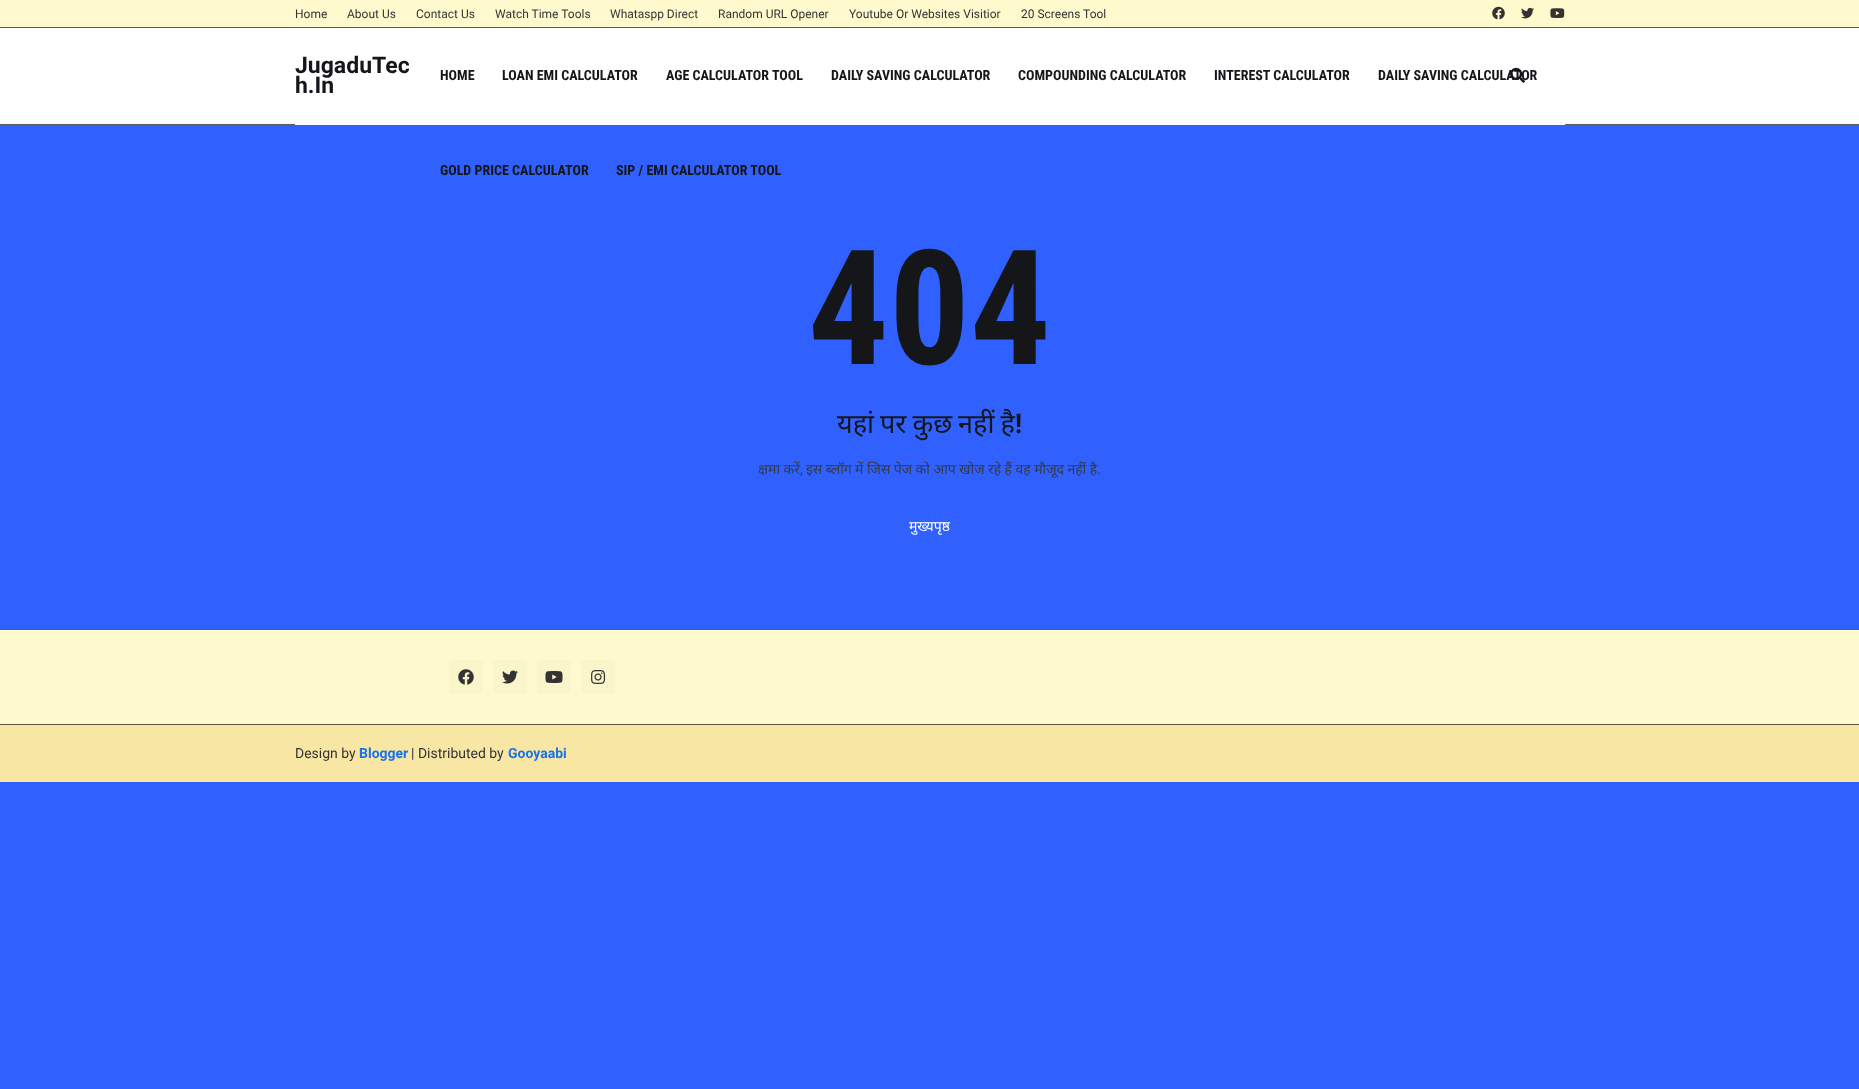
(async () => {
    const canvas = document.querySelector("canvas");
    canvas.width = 1859;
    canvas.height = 1089;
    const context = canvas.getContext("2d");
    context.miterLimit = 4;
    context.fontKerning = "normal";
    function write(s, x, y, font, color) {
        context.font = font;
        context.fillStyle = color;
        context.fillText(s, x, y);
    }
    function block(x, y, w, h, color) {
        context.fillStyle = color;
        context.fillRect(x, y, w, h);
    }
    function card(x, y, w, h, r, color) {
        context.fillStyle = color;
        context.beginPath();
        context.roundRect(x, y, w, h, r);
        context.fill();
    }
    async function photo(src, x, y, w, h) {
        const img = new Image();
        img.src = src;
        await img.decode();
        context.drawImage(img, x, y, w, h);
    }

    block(0, 0, 1859, 1089, "rgb(48, 97, 255)");
    block(0, 0, 1859, 27, "rgb(255, 250, 205)");
    block(0, 27, 1859, 1, "rgb(93, 92, 81)");
    write("Home", 295, 18, "12px Roboto", "rgb(51, 51, 51)");
    write("About Us", 347, 18, "12px Roboto", "rgb(51, 51, 51)");
    write("Contact Us", 416, 18, "12px Roboto", "rgb(51, 51, 51)");
    write("Watch Time Tools", 495, 18, "12px Roboto", "rgb(51, 51, 51)");
    write("Whataspp Direct", 610, 18, "12px Roboto", "rgb(51, 51, 51)");
    write("Random URL Opener", 718, 18, "12px Roboto", "rgb(51, 51, 51)");
    write("Youtube Or Websites Visitior", 849, 18, "12px Roboto", "rgb(51, 51, 51)");
    write("20 Screens Tool", 1021, 18, "12px Roboto", "rgb(51, 51, 51)");
    await photo("media/1.png", 1492, 6, 13, 14);
    await photo("media/2.png", 1521, 7, 13, 12);
    await photo("media/3.png", 1550, 8, 15, 10);
    block(0, 28, 1859, 96, "rgb(255, 255, 255)");
    block(0, 124, 1859, 1, "rgb(93, 93, 93)");
    block(295, 124, 1270, 1, "rgb(255, 255, 255)");
    write("JugaduTec", 295, 73, "bold 23px Roboto", "rgb(21, 22, 26)");
    write("h.In", 295, 93, "bold 23px Roboto", "rgb(21, 22, 26)");
    write("HOME", 440, 80, "bold 14px Roboto Condensed", "rgb(21, 22, 26)");
    write("LOAN EMI CALCULATOR", 502, 80, "bold 14px Roboto Condensed", "rgb(21, 22, 26)");
    write("AGE CALCULATOR TOOL", 666, 80, "bold 14px Roboto Condensed", "rgb(21, 22, 26)");
    write("DAILY SAVING CALCULATOR", 831, 80, "bold 14px Roboto Condensed", "rgb(21, 22, 26)");
    write("COMPOUNDING CALCULATOR", 1018, 80, "bold 14px Roboto Condensed", "rgb(21, 22, 26)");
    write("INTEREST CALCULATOR", 1214, 80, "bold 14px Roboto Condensed", "rgb(21, 22, 26)");
    write("DAILY SAVING CALCULATOR", 1378, 80, "bold 14px Roboto Condensed", "rgb(21, 22, 26)");
    write("GOLD PRICE CALCULATOR", 440, 175, "bold 14px Roboto Condensed", "rgb(21, 22, 26)");
    write("SIP / EMI CALCULATOR TOOL", 616, 175, "bold 14px Roboto Condensed", "rgb(21, 22, 26)");
    await photo("media/4.png", 1510, 67, 15, 16);
    write("404", 808, 364, "bold 160px Roboto Condensed", "rgb(21, 22, 26)");
    context.wordSpacing = "-1px";
    write("यहां पर कुछ नहीं है", 837, 433, "27px Noto Sans", "rgb(21, 22, 26)");
    context.wordSpacing = "0px";
    write("!", 1015, 433, "bold 27px Roboto Condensed", "rgb(21, 22, 26)");
    context.wordSpacing = "-0.2px";
    write("क्षमा करें", 758, 474, "14px Noto Sans", "rgb(53, 58, 68)");
    write("इस ब्लॉग में जिस पेज को आप खोज रहे हैं वह मौजूद नहीं है", 806, 474, "14px Noto Sans", "rgb(53, 58, 68)");
    context.wordSpacing = "0px";
    write(",", 800, 474, "14px Roboto", "rgb(53, 58, 68)");
    write(".", 1097, 474, "14px Roboto", "rgb(53, 58, 68)");
    write("मुख्यपृष्ठ", 909, 531, "14px Noto Sans", "rgb(255, 255, 255)");
    block(0, 630, 1859, 94, "rgb(255, 250, 205)");
    block(0, 629, 1859, 1, "rgb(93, 92, 81)");
    card(449, 660, 34, 34, 3, "rgb(250, 245, 203)");
    await photo("media/5.png", 458, 669, 16, 16);
    card(493, 660, 34, 34, 3, "rgb(250, 245, 203)");
    await photo("media/6.png", 502, 670, 16, 14);
    card(537, 660, 34, 34, 3, "rgb(250, 245, 203)");
    await photo("media/7.png", 545, 671, 18, 12);
    card(581, 660, 34, 34, 3, "rgb(250, 245, 203)");
    await photo("media/8.png", 591, 670, 15, 14);
    block(0, 725, 1859, 57, "rgb(247, 230, 164)");
    block(0, 724, 1859, 1, "rgb(91, 87, 70)");
    write("Design by", 295, 758, "14px Roboto", "rgb(51, 51, 51)");
    write("Blogger", 359, 758, "bold 14px Roboto", "rgb(26, 115, 232)");
    write("| Distributed by", 411, 758, "14px Roboto", "rgb(51, 51, 51)");
    write("Gooyaabi", 508, 758, "bold 14px Roboto", "rgb(26, 115, 232)");
})();
